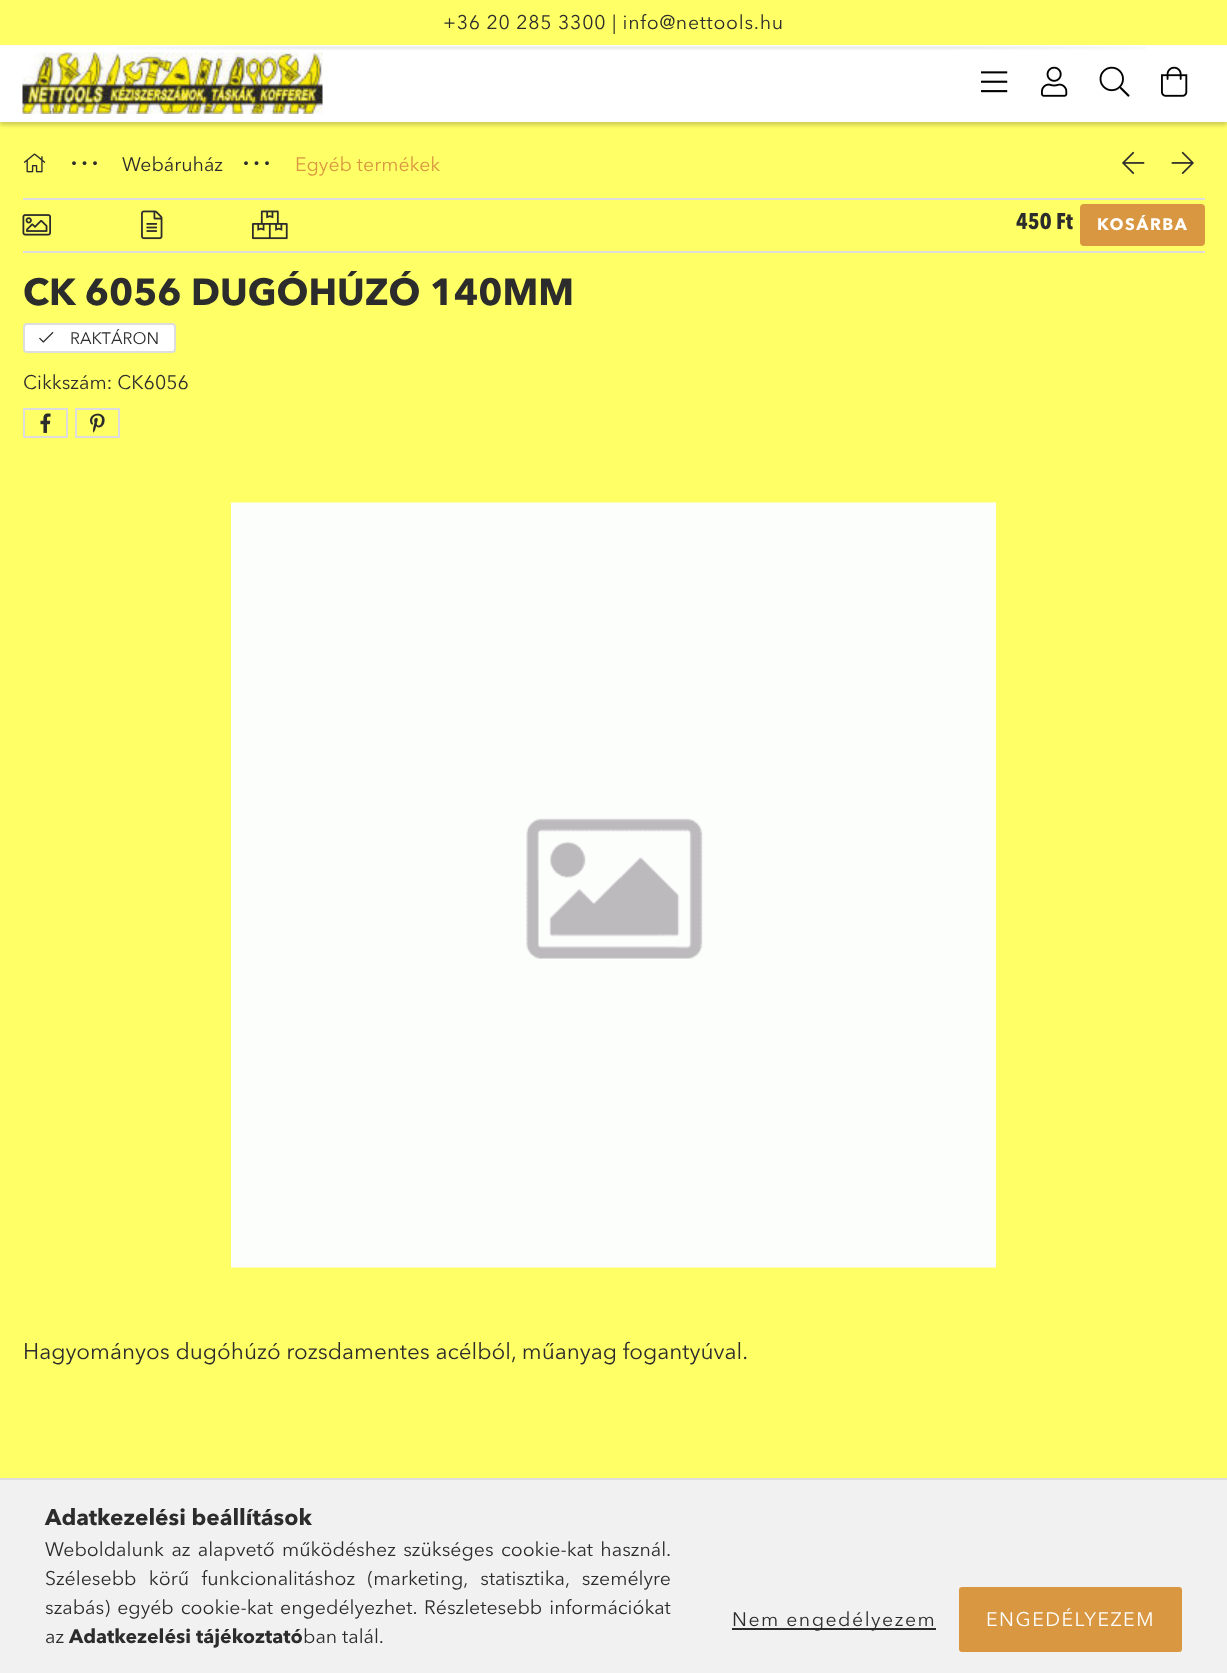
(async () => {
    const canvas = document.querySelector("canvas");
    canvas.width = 1227;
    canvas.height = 1673;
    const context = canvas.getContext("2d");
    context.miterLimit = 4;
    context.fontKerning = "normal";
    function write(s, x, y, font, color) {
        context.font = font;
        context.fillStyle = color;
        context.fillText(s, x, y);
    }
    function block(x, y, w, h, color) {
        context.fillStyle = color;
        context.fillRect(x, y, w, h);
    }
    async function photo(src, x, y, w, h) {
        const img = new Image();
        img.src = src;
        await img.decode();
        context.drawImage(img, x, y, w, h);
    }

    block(0, 0, 1227, 1673, "rgb(255, 255, 102)");
    context.fillStyle = "rgba(0, 0, 0, 0.2)";
    context.filter = "blur(2px)";
    context.beginPath();
    context.rect(0, 3, 1227, 122);
    context.fill();
    context.filter = "none";
    block(0, 45, 1227, 77, "rgb(255, 255, 255)");
    block(0, 0, 1227, 45, "rgb(255, 255, 102)");
    context.letterSpacing = "0.75px";
    write("+36 20 285 3300 | info@nettools.hu", 443, 29, "19.5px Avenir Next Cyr", "rgb(44, 44, 44)");
    await photo("media/1.png", 117, 46, 1029, 4);
    await photo("media/2.png", 22, 52, 301, 62);
    await photo("media/3.png", 981, 71, 27, 22);
    await photo("media/4.png", 1041, 66, 27, 31);
    await photo("media/5.png", 1099, 66, 31, 31);
    await photo("media/6.png", 1161, 66, 27, 31);
    await photo("media/7.png", 23, 153, 23, 20);
    context.letterSpacing = "4.5px";
    write("∙∙∙", 71, 171, "bold 24px Liberation Serif", "rgb(44, 44, 44)");
    context.letterSpacing = "0px";
    write("Webáruház", 122, 171, "19.5px Avenir Next Cyr", "rgb(44, 44, 44)");
    context.letterSpacing = "4.5px";
    write("∙∙∙", 243, 171, "bold 24px Liberation Serif", "rgb(44, 44, 44)");
    context.letterSpacing = "0px";
    write("Egyéb termékek", 295, 171, "19.5px Avenir Next Cyr", "rgb(217, 151, 65)");
    await photo("media/8.png", 1122, 151, 23, 23);
    await photo("media/9.png", 1171, 151, 23, 23);
    block(23, 198, 1182, 2, "rgb(221, 221, 221)");
    block(23, 251, 1182, 2, "rgb(221, 221, 221)");
    await photo("media/10.png", 22, 214, 29, 22);
    await photo("media/11.png", 141, 210, 22, 30);
    await photo("media/12.png", 252, 210, 36, 30);
    write("450 Ft", 1016, 229, "bold 22.5px Avenir Next", "rgb(44, 44, 44)");
    context.fillStyle = "rgb(217, 151, 65)";
    context.beginPath();
    context.roundRect(1081, 205, 123, 40, 3);
    context.fill();
    context.strokeStyle = "rgb(217, 151, 65)";
    context.lineWidth = 2;
    context.stroke();
    context.letterSpacing = "1.5px";
    write("KOSÁRBA", 1097, 230, "bold 16.5px Avenir Next Cyr", "rgb(255, 255, 255)");
    context.letterSpacing = "0px";
    write("CK 6056 DUGÓHÚZÓ 140MM", 23, 305, "bold 37.5px Avenir Next Cyr", "rgb(44, 44, 44)");
    context.fillStyle = "rgb(255, 255, 255)";
    context.beginPath();
    context.roundRect(24, 324, 151, 28, 3);
    context.fill();
    context.strokeStyle = "rgb(221, 221, 221)";
    context.stroke();
    await photo("media/13.png", 39, 331, 15, 12);
    write("RAKTÁRON", 70, 344, "16.5px Avenir Next Cyr", "rgb(44, 44, 44)");
    write("Cikkszám: CK6056", 23, 389, "19.5px Avenir Next Cyr", "rgb(44, 44, 44)");
    context.strokeRect(24, 409, 43, 28);
    await photo("media/14.png", 40, 413, 11, 20);
    context.strokeRect(76, 409, 43, 28);
    await photo("media/15.png", 90, 413, 15, 20);
    await photo("media/16.png", 231, 502, 765, 766);
    write("Hagyományos dugóhúzó rozsdamentes acélból, műanyag fogantyúval.", 23, 1359, "22.5px Avenir Next Cyr", "rgb(44, 44, 44)");
    block(0, 1480, 1227, 193, "rgb(241, 241, 241)");
    block(0, 1478, 1227, 2, "rgb(221, 221, 221)");
    write("Adatkezelési beállítások", 45, 1525, "bold 22.5px Avenir Next Cyr", "rgb(44, 44, 44)");
    context.wordSpacing = "2.5px";
    write("Weboldalunk az alapvető működéshez szükséges cookie-kat használ.", 45, 1556, "19.5px Avenir Next Cyr", "rgb(44, 44, 44)");
    context.wordSpacing = "7.5px";
    write("Szélesebb körű funkcionalitáshoz (marketing, statisztika, személyre", 45, 1585, "19.5px Avenir Next Cyr", "rgb(44, 44, 44)");
    context.wordSpacing = "2.25px";
    write("szabás) egyéb cookie-kat engedélyezhet. Részletesebb információkat", 45, 1614, "19.5px Avenir Next Cyr", "rgb(44, 44, 44)");
    context.wordSpacing = "0px";
    write("az", 45, 1643, "19.5px Avenir Next Cyr", "rgb(44, 44, 44)");
    write("Adatkezelési tájékoztató", 69, 1643, "bold 19.5px Avenir Next Cyr", "rgb(44, 44, 44)");
    write("ban talál.", 303, 1643, "19.5px Avenir Next Cyr", "rgb(44, 44, 44)");
    block(732, 1628, 204, 2, "rgb(44, 44, 44)");
    context.letterSpacing = "1.5px";
    write("Nem engedélyezem", 732, 1626, "19.5px Avenir Next Cyr", "rgb(44, 44, 44)");
    context.fillStyle = "rgb(217, 151, 65)";
    context.beginPath();
    context.roundRect(960, 1588, 221, 63, 2);
    context.fill();
    context.strokeStyle = "rgb(217, 151, 65)";
    context.stroke();
    write("ENGEDÉLYEZEM", 986, 1626, "19.5px Avenir Next Cyr", "rgb(255, 255, 255)");
})();
